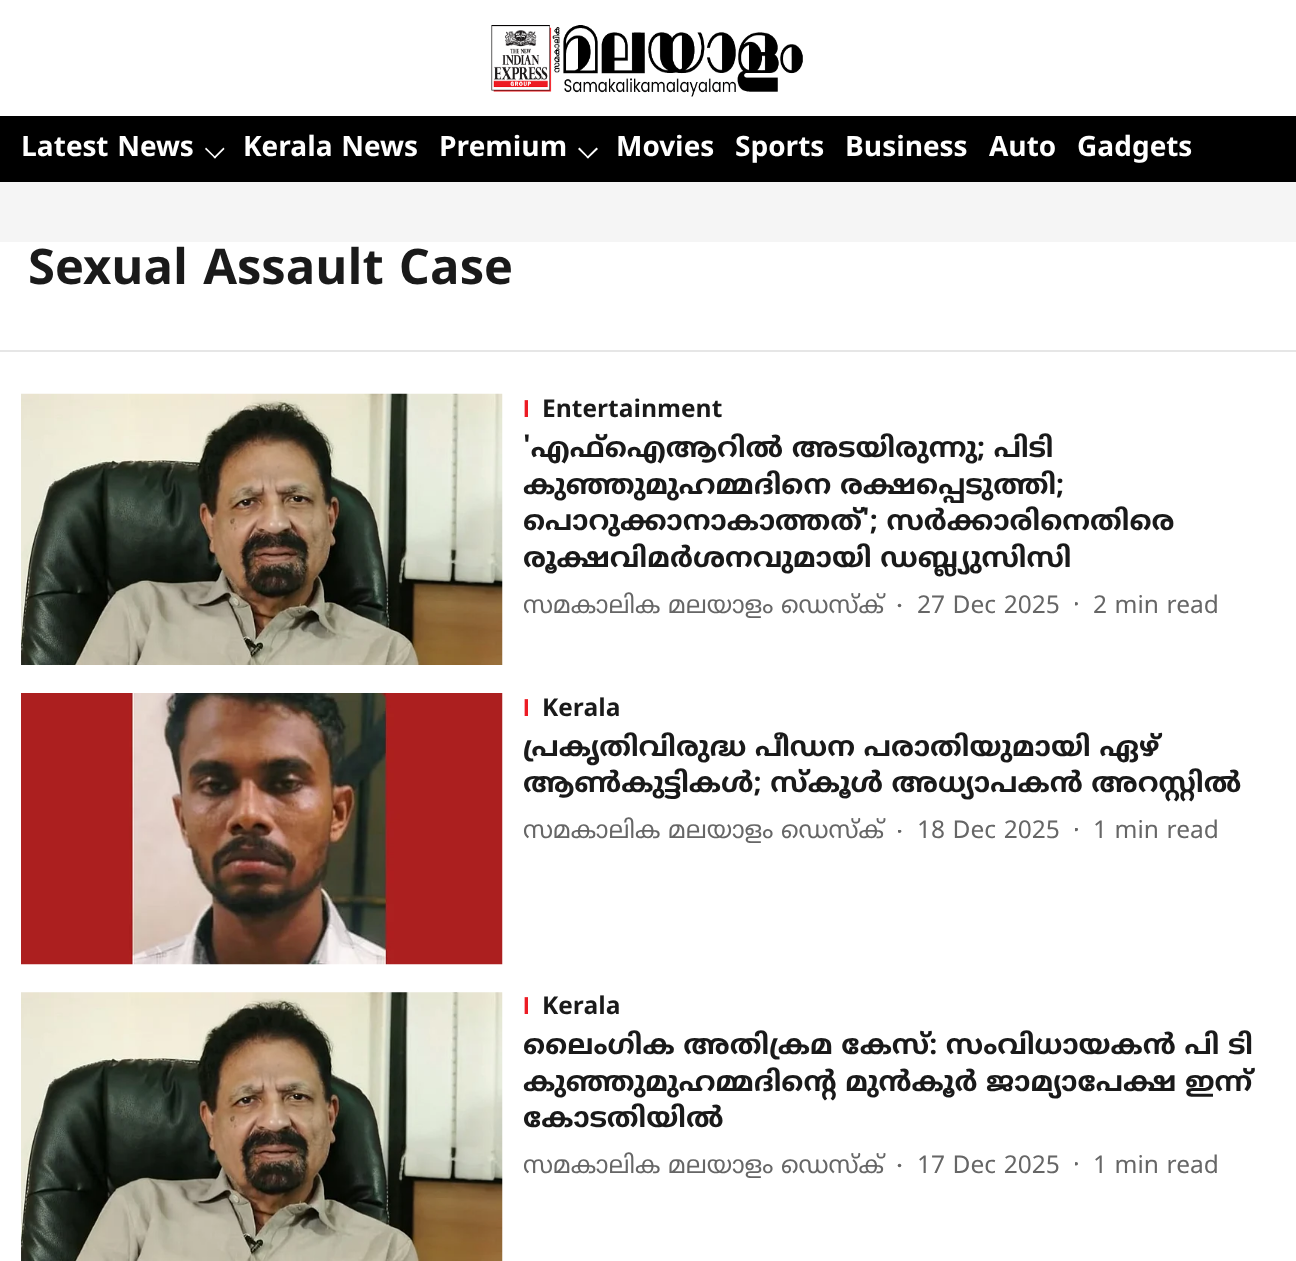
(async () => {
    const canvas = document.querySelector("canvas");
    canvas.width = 1296;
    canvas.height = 1261;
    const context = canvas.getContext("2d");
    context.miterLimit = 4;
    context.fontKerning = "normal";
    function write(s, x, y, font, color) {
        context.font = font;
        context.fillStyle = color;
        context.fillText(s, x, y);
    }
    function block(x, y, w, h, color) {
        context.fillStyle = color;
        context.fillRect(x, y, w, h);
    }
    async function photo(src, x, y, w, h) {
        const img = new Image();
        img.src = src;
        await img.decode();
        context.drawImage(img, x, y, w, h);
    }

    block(0, 0, 1296, 1261, "rgb(245, 245, 245)");
    block(0, 0, 1296, 116, "rgb(255, 255, 255)");
    await photo("media/1.png", 491, 25, 312, 72);
    block(0, 116, 1296, 66, "rgb(0, 0, 0)");
    write("Latest News", 21, 156, "bold 28px Noto Sans Malayalam", "rgb(255, 255, 255)");
    context.beginPath();
    context.moveTo(223.5, 147.5);
    context.lineTo(224.5, 149);
    context.lineTo(215, 158.5);
    context.lineTo(213.5, 157.5);
    context.closePath();
    context.fill();
    context.beginPath();
    context.moveTo(206, 147.5);
    context.lineTo(216, 157.5);
    context.lineTo(215, 158.5);
    context.lineTo(205, 149);
    context.closePath();
    context.fill();
    write("Kerala News", 243, 156, "bold 28px Noto Sans Malayalam", "rgb(255, 255, 255)");
    write("Premium", 439, 156, "bold 28px Noto Sans Malayalam", "rgb(255, 255, 255)");
    context.beginPath();
    context.moveTo(596.5, 147.5);
    context.lineTo(598, 149);
    context.lineTo(588, 158.5);
    context.lineTo(586.5, 157.5);
    context.closePath();
    context.fill();
    context.beginPath();
    context.moveTo(579.5, 147.5);
    context.lineTo(589, 157.5);
    context.lineTo(588, 158.5);
    context.lineTo(578, 149);
    context.closePath();
    context.fill();
    write("Movies", 616, 156, "bold 28px Noto Sans Malayalam", "rgb(255, 255, 255)");
    write("Sports", 735, 156, "bold 28px Noto Sans Malayalam", "rgb(255, 255, 255)");
    write("Business", 845, 156, "bold 28px Noto Sans Malayalam", "rgb(255, 255, 255)");
    write("Auto", 989, 156, "bold 28px Noto Sans Malayalam", "rgb(255, 255, 255)");
    write("Gadgets", 1077, 156, "bold 28px Noto Sans Malayalam", "rgb(255, 255, 255)");
    block(0, 242, 1296, 108, "rgb(255, 255, 255)");
    block(0, 350, 1296, 2, "rgb(230, 230, 230)");
    write("Sexual Assault Case", 28, 284, "bold 49px Noto Sans Malayalam", "rgb(26, 26, 26)");
    block(0, 352, 1296, 909, "rgb(255, 255, 255)");
    await photo("media/2.png", 21, 393, 482, 272);
    context.save();
    context.beginPath();
    context.rect(523, 394, 5, 31);
    context.clip();
    write("I", 523, 417, "bold 24.5px Liberation Sans", "rgb(236, 27, 36)");
    context.restore();
    write("Entertainment", 542, 417, "bold 24.5px Noto Sans Malayalam", "rgb(26, 26, 26)");
    write("'എഫ്‌ഐആറില്‍ അടയിരുന്നു; പിടി", 523, 457, "bold 28px Noto Sans Malayalam", "rgb(26, 26, 26)");
    write("കുഞ്ഞുമുഹമ്മദിനെ രക്ഷപ്പെടുത്തി;", 523, 494, "bold 28px Noto Sans Malayalam", "rgb(26, 26, 26)");
    write("പൊറുക്കാനാകാത്തത്'; സര്‍ക്കാരിനെതിരെ", 523, 530, "bold 28px Noto Sans Malayalam", "rgb(26, 26, 26)");
    write("രൂക്ഷവിമര്‍ശനവുമായി ഡബ്ല്യുസിസി", 523, 567, "bold 28px Noto Sans Malayalam", "rgb(26, 26, 26)");
    write("സമകാലിക മലയാളം ഡെസ്ക്", 523, 613, "24.5px Noto Sans Malayalam", "rgb(102, 102, 102)");
    context.beginPath();
    context.arc(899.5, 605.5, 1.8, 0, Math.PI * 2);
    context.fill();
    write("27 Dec 2025", 917, 613, "24.5px Noto Sans Malayalam", "rgb(102, 102, 102)");
    context.save();
    context.beginPath();
    context.rect(1075, 602, 5, 5);
    context.clip();
    context.beginPath();
    context.arc(1076.2, 603.8, 1.8, 0, Math.PI * 2);
    context.fill();
    context.restore();
    write("2 min read", 1093, 613, "24.5px Noto Sans Malayalam", "rgb(102, 102, 102)");
    await photo("media/3.png", 21, 693, 482, 272);
    context.save();
    context.beginPath();
    context.rect(523, 693, 5, 32);
    context.clip();
    write("I", 523, 716, "bold 24.5px Liberation Sans", "rgb(236, 27, 36)");
    context.restore();
    write("Kerala", 542, 716, "bold 24.5px Noto Sans Malayalam", "rgb(26, 26, 26)");
    write("പ്രകൃതിവിരുദ്ധ പീഡന പരാതിയുമായി ഏഴ്", 523, 756, "bold 28px Noto Sans Malayalam", "rgb(26, 26, 26)");
    write("ആണ്‍കുട്ടികള്‍; സ്‌കൂള്‍ അധ്യാപകന്‍ അറസ്റ്റില്‍", 523, 792, "bold 28px Noto Sans Malayalam", "rgb(26, 26, 26)");
    write("സമകാലിക മലയാളം ഡെസ്ക്", 523, 838, "24.5px Noto Sans Malayalam", "rgb(102, 102, 102)");
    context.save();
    context.beginPath();
    context.rect(898, 830, 5, 5);
    context.clip();
    context.beginPath();
    context.arc(899.5, 831.2, 1.8, 0, Math.PI * 2);
    context.fill();
    context.restore();
    write("18 Dec 2025", 917, 838, "24.5px Noto Sans Malayalam", "rgb(102, 102, 102)");
    context.save();
    context.beginPath();
    context.rect(1075, 828, 5, 5);
    context.clip();
    context.beginPath();
    context.arc(1076.2, 829.5, 1.8, 0, Math.PI * 2);
    context.fill();
    context.restore();
    write("1 min read", 1093, 838, "24.5px Noto Sans Malayalam", "rgb(102, 102, 102)");
    await photo("media/4.png", 21, 992, 482, 269);
    context.save();
    context.beginPath();
    context.rect(523, 992, 5, 32);
    context.clip();
    write("I", 523, 1014, "bold 24.5px Liberation Sans", "rgb(236, 27, 36)");
    context.restore();
    write("Kerala", 542, 1014, "bold 24.5px Noto Sans Malayalam", "rgb(26, 26, 26)");
    write("ലൈംഗിക അതിക്രമ കേസ്: സംവിധായകൻ പി ടി", 523, 1054, "bold 28px Noto Sans Malayalam", "rgb(26, 26, 26)");
    write("കുഞ്ഞുമുഹമ്മദിന്റെ മുൻകൂർ ജാമ്യാപേക്ഷ ഇന്ന്", 523, 1091, "bold 28px Noto Sans Malayalam", "rgb(26, 26, 26)");
    write("കോടതിയിൽ", 523, 1127, "bold 28px Noto Sans Malayalam", "rgb(26, 26, 26)");
    write("സമകാലിക മലയാളം ഡെസ്ക്", 523, 1173, "24.5px Noto Sans Malayalam", "rgb(102, 102, 102)");
    context.beginPath();
    context.arc(899.5, 1165.5, 1.8, 0, Math.PI * 2);
    context.fill();
    write("17 Dec 2025", 917, 1173, "24.5px Noto Sans Malayalam", "rgb(102, 102, 102)");
    context.save();
    context.beginPath();
    context.rect(1075, 1162, 5, 5);
    context.clip();
    context.beginPath();
    context.arc(1076.2, 1163.8, 1.8, 0, Math.PI * 2);
    context.fill();
    context.restore();
    write("1 min read", 1093, 1173, "24.5px Noto Sans Malayalam", "rgb(102, 102, 102)");
})();
